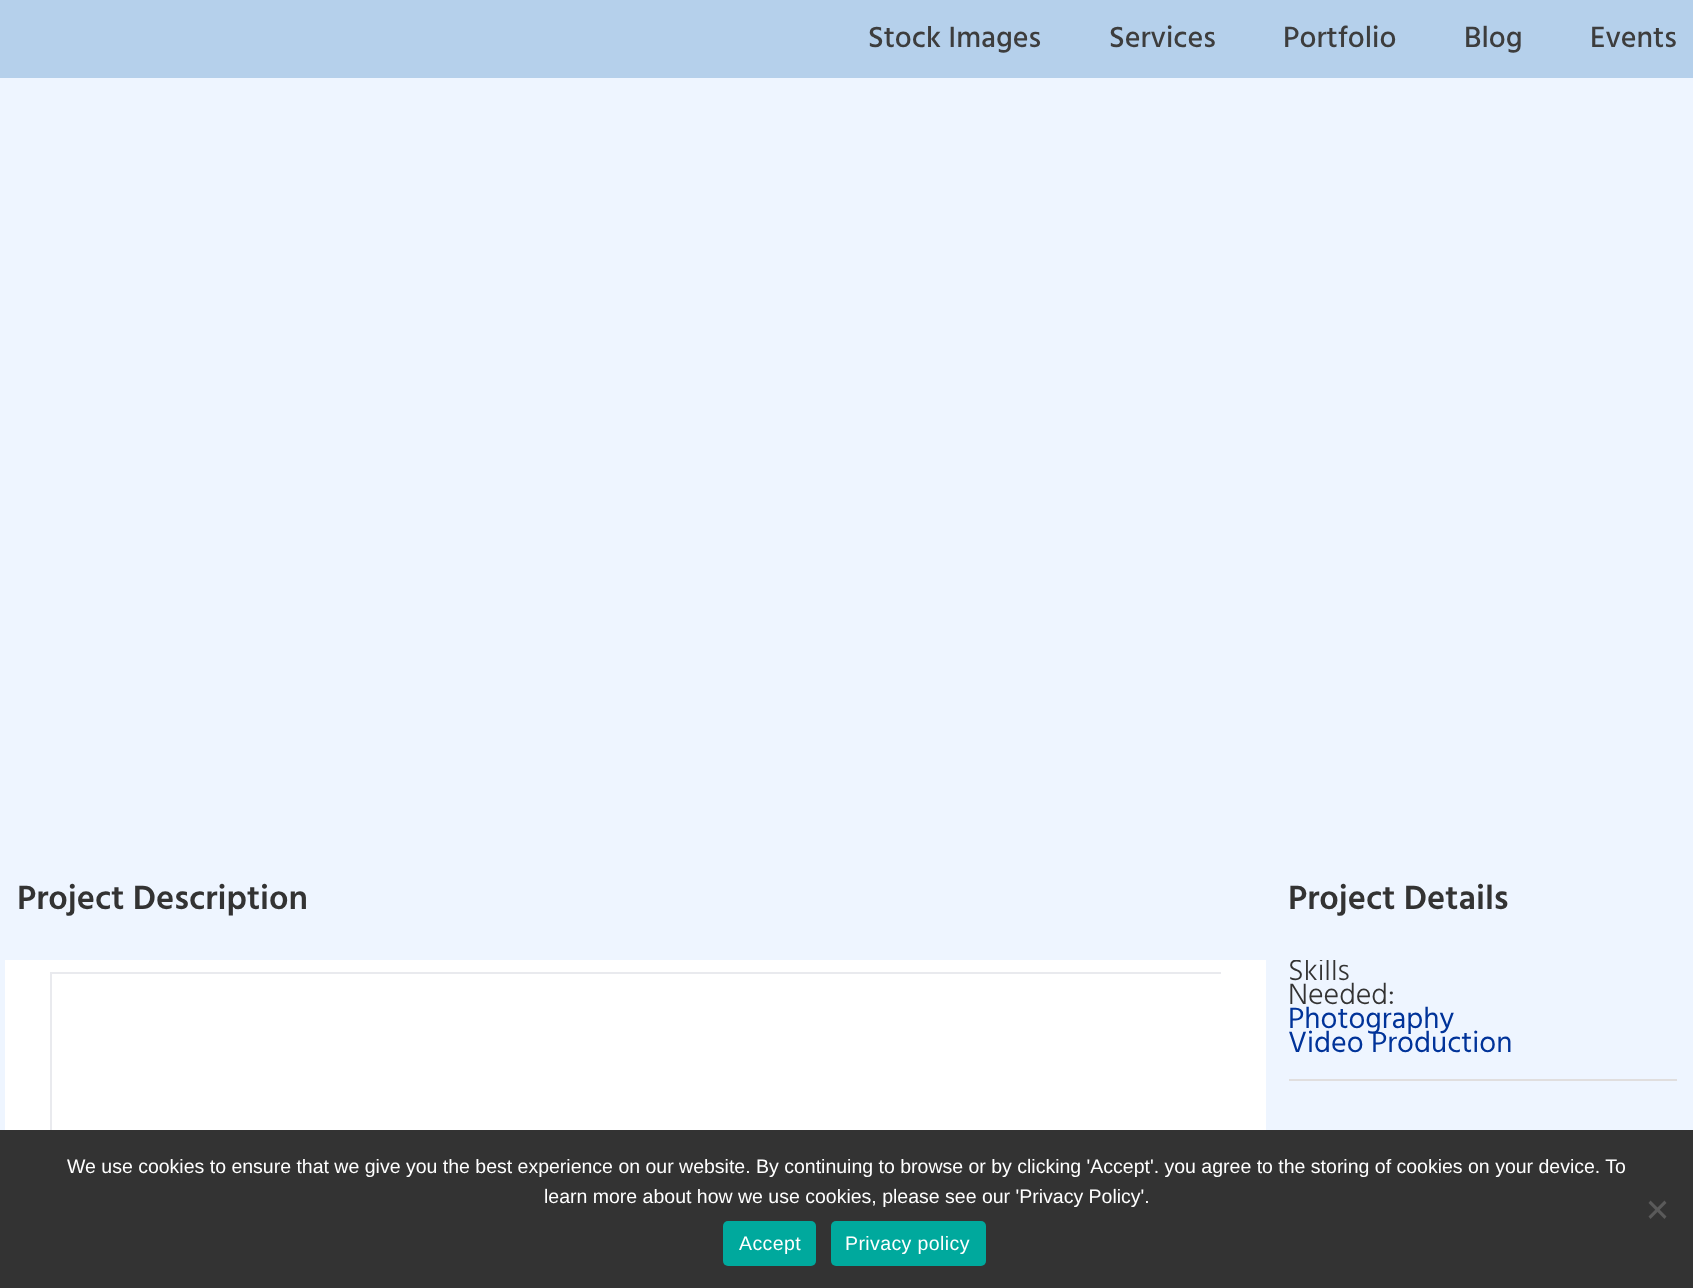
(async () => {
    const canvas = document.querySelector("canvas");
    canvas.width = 1693;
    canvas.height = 1288;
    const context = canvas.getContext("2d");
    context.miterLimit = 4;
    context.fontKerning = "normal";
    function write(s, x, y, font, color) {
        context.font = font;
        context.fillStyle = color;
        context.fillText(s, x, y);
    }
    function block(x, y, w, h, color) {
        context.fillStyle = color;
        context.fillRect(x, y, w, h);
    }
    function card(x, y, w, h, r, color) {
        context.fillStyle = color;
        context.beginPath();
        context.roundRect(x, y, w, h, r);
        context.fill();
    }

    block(0, 0, 1693, 1288, "rgb(238, 245, 255)");
    block(0, 0, 1693, 78, "rgb(181, 208, 235)");
    write("Stock Images", 868, 47, "500 30px Hind", "rgb(61, 61, 61)");
    write("Services", 1109, 47, "500 30px Hind", "rgb(61, 61, 61)");
    write("Portfolio", 1283, 47, "500 30px Hind", "rgb(61, 61, 61)");
    write("Blog", 1464, 47, "500 30px Hind", "rgb(61, 61, 61)");
    write("Events", 1590, 47, "500 30px Hind", "rgb(61, 61, 61)");
    write("Project Description", 17, 909, "600 34.5px Hind", "rgb(51, 51, 51)");
    block(5, 960, 1261, 170, "rgb(255, 255, 255)");
    block(1289, 1079, 388, 2, "rgb(224, 222, 222)");
    context.save();
    context.beginPath();
    context.rect(1289, 960, 388, 119);
    context.clip();
    write("Skills", 1288, 980, "300 30px Hind", "rgb(51, 51, 51)");
    context.restore();
    write("Needed:", 1288, 1004, "300 30px Hind", "rgb(51, 51, 51)");
    write("Photography", 1288, 1028, "30px Hind", "rgb(0, 51, 153)");
    write("Video Production", 1288, 1052, "30px Hind", "rgb(0, 51, 153)");
    context.save();
    context.beginPath();
    context.rect(50, 960, 1171, 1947);
    context.clip();
    context.strokeStyle = "rgb(233, 234, 238)";
    context.lineWidth = 2;
    context.strokeRect(51, 973, 1280, 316);
    context.restore();
    write("Project Details", 1288, 909, "600 34.5px Hind", "rgb(51, 51, 51)");
    block(0, 1130, 1693, 158, "rgb(51, 51, 51)");
    write("We use cookies to ensure that we give you the best experience on our website. By continuing to browse or by clicking 'Accept'. you agree to the storing of cookies on your device. To", 67, 1173, "19.5px Liberation Sans", "rgb(255, 255, 255)");
    write("learn more about how we use cookies, please see our 'Privacy Policy'.", 544, 1203, "19.5px Liberation Sans", "rgb(255, 255, 255)");
    context.fillStyle = "rgb(90, 90, 90)";
    context.beginPath();
    context.moveTo(1664.5, 1200.5);
    context.lineTo(1666.5, 1203);
    context.lineTo(1650.5, 1219);
    context.lineTo(1648.5, 1216.5);
    context.closePath();
    context.fill();
    context.beginPath();
    context.moveTo(1648.5, 1203);
    context.lineTo(1650.5, 1200.5);
    context.lineTo(1666.5, 1216.5);
    context.lineTo(1664.5, 1219);
    context.closePath();
    context.fill();
    card(723, 1221, 93, 45, 5, "rgb(0, 169, 157)");
    context.letterSpacing = "0.4px";
    write("Accept", 739, 1250, "19.5px Liberation Sans", "rgb(255, 255, 255)");
    card(831, 1221, 155, 45, 5, "rgb(0, 169, 157)");
    write("Privacy policy", 845, 1250, "19.5px Liberation Sans", "rgb(255, 255, 255)");
})();
